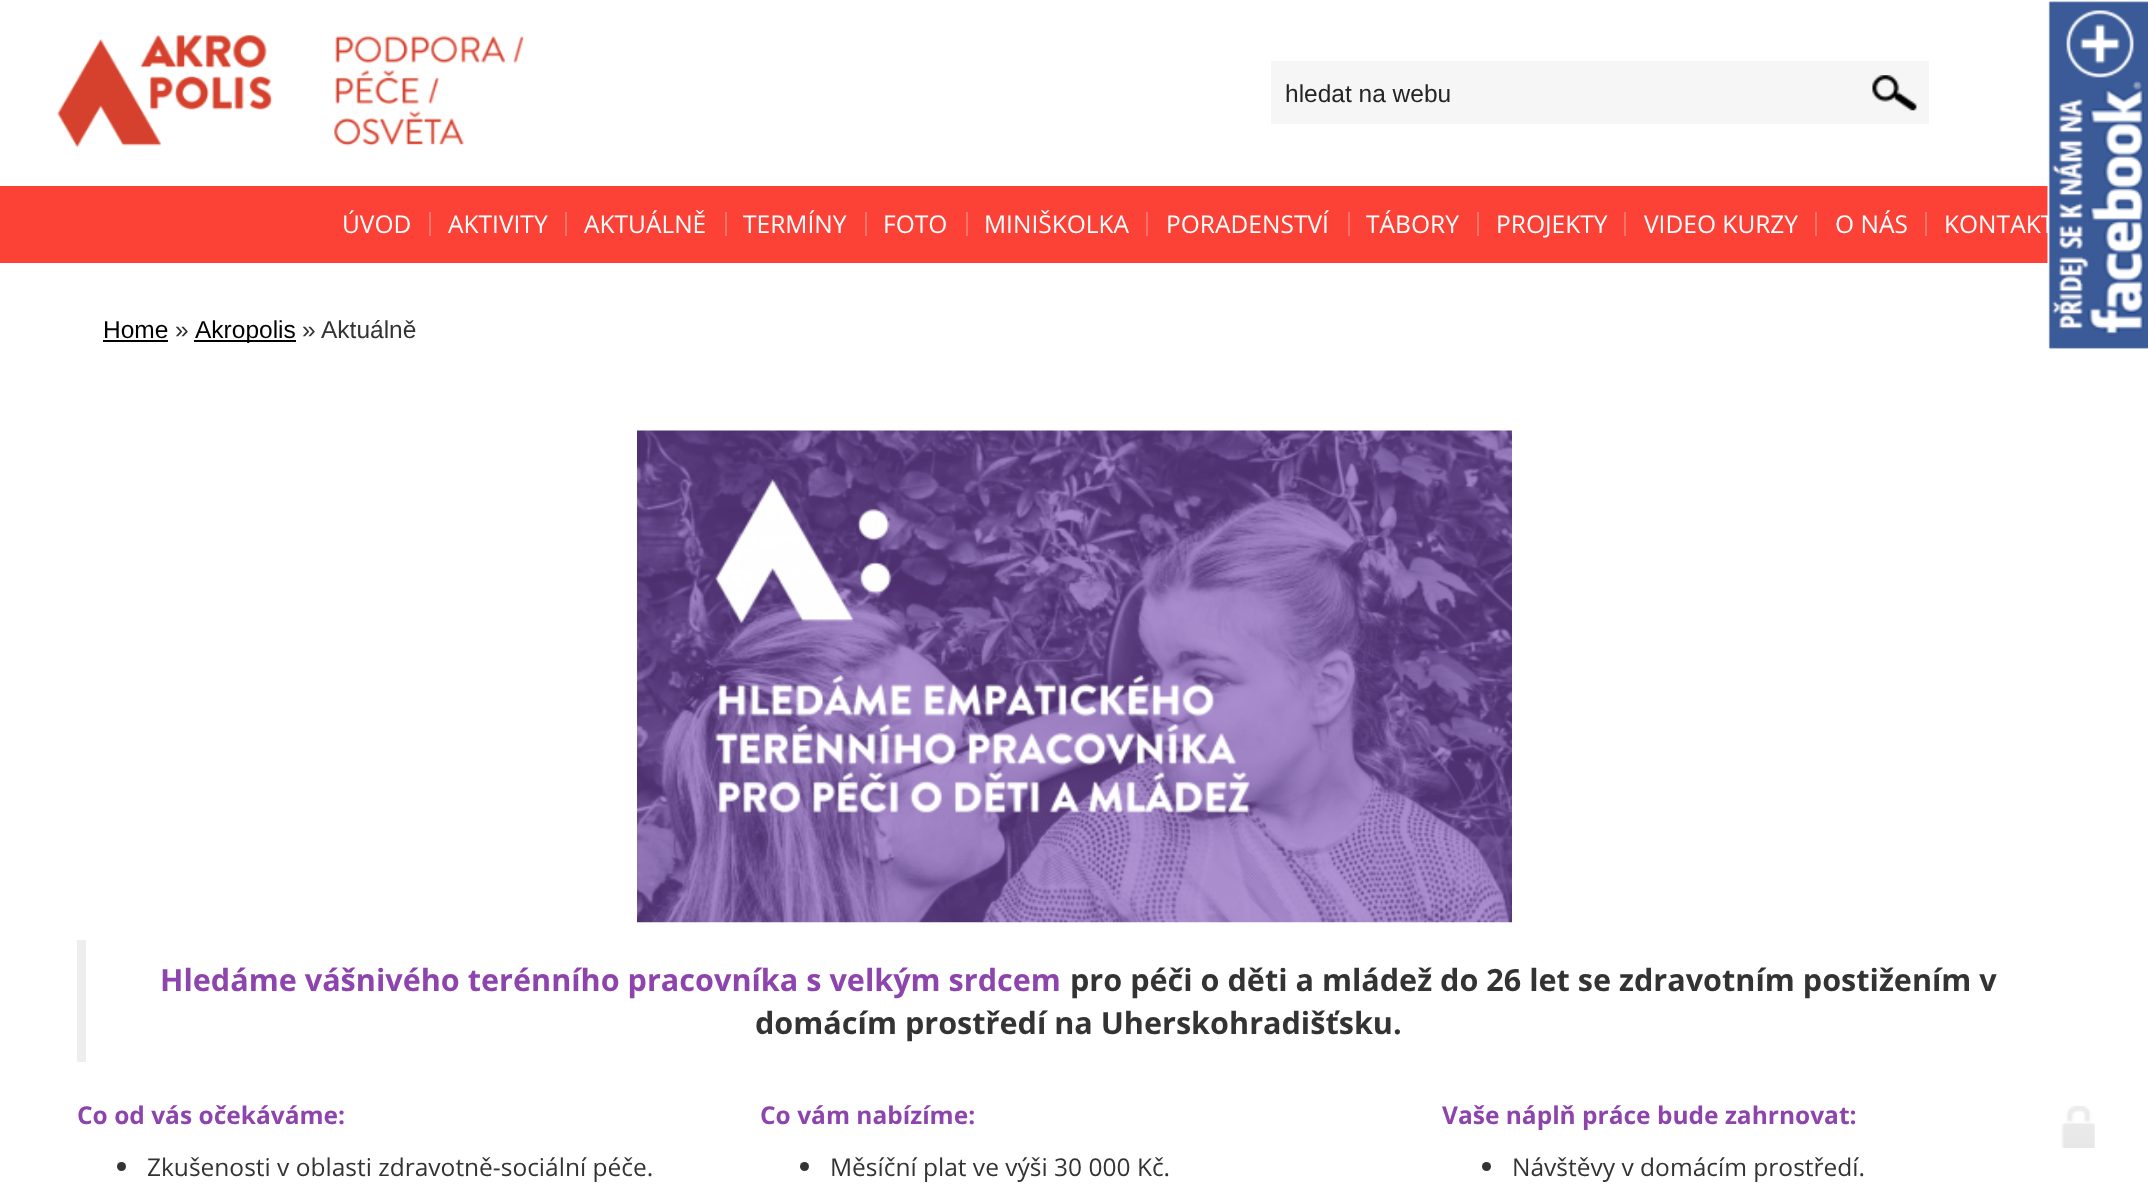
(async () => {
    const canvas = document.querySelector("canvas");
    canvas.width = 2148;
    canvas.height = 1196;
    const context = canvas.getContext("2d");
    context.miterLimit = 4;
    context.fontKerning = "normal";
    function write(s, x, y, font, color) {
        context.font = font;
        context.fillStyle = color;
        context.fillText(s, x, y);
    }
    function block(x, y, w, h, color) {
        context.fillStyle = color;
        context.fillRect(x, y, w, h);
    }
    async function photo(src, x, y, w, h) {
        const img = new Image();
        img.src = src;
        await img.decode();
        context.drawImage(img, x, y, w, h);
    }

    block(0, 0, 2148, 1196, "rgb(255, 255, 255)");
    await photo("media/1.png", 57, 35, 467, 113);
    block(1271, 61, 658, 63, "rgb(246, 246, 246)");
    await photo("media/2.png", 1872, 75, 45, 36);
    write("hledat na webu", 1285, 102, "24.5px Liberation Sans", "rgb(37, 37, 37)");
    block(0, 186, 2048, 77, "rgb(252, 66, 55)");
    write("KONTAKT", 1944, 233, "24.5px Open Sans", "rgb(255, 255, 255)");
    await photo("media/3.png", 2047, 1, 101, 348);
    block(429, 212, 2, 24, "rgb(253, 113, 105)");
    write("ÚVOD", 342, 233, "24.5px Open Sans", "rgb(255, 255, 255)");
    block(565, 212, 2, 24, "rgb(253, 113, 105)");
    write("AKTIVITY", 448, 233, "24.5px Open Sans", "rgb(255, 255, 255)");
    block(725, 212, 2, 24, "rgb(253, 113, 105)");
    write("AKTUÁLNĚ", 584, 233, "24.5px Open Sans", "rgb(255, 255, 255)");
    block(865, 212, 2, 24, "rgb(253, 113, 105)");
    write("TERMÍNY", 743, 233, "24.5px Open Sans", "rgb(255, 255, 255)");
    block(966, 212, 2, 24, "rgb(253, 113, 105)");
    write("FOTO", 883, 233, "24.5px Open Sans", "rgb(255, 255, 255)");
    block(1146, 212, 2, 24, "rgb(253, 113, 105)");
    write("MINIŠKOLKA", 984, 233, "24.5px Open Sans", "rgb(255, 255, 255)");
    block(1348, 212, 2, 24, "rgb(253, 113, 105)");
    write("PORADENSTVÍ", 1166, 233, "24.5px Open Sans", "rgb(255, 255, 255)");
    block(1477, 212, 2, 24, "rgb(253, 113, 105)");
    write("TÁBORY", 1366, 233, "24.5px Open Sans", "rgb(255, 255, 255)");
    block(1624, 212, 2, 24, "rgb(253, 113, 105)");
    write("PROJEKTY", 1496, 233, "24.5px Open Sans", "rgb(255, 255, 255)");
    block(1815, 212, 2, 24, "rgb(253, 113, 105)");
    write("VIDEO KURZY", 1644, 233, "24.5px Open Sans", "rgb(255, 255, 255)");
    block(1925, 212, 2, 24, "rgb(253, 113, 105)");
    write("O NÁS", 1835, 233, "24.5px Open Sans", "rgb(255, 255, 255)");
    write("Home", 103, 338, "24.5px Liberation Sans", "rgb(0, 0, 0)");
    block(103, 340, 65, 2, "rgb(0, 0, 0)");
    write("»", 175, 338, "24.5px Liberation Sans", "rgb(51, 51, 51)");
    block(194, 340, 102, 2, "rgb(0, 0, 0)");
    write("Akropolis", 195, 338, "24.5px Liberation Sans", "rgb(0, 0, 0)");
    write("»", 302, 338, "24.5px Liberation Sans", "rgb(51, 51, 51)");
    write("Aktuálně", 321, 338, "24.5px Liberation Sans", "rgb(51, 51, 51)");
    await photo("media/4.png", 637, 430, 875, 493);
    block(77, 940, 9, 122, "rgb(238, 238, 238)");
    write("Hledáme vášnivého terénního pracovníka s velkým srdcem", 160, 991, "bold 30.6px Open Sans", "rgb(142, 68, 173)");
    write("pro péči o děti a mládež do 26 let se zdravotním postižením v", 1070, 991, "bold 30.6px Open Sans", "rgb(51, 51, 51)");
    write("domácím prostředí na Uherskohradišťsku.", 755, 1034, "bold 30.6px Open Sans", "rgb(51, 51, 51)");
    write("Co od vás očekáváme:", 77, 1124, "bold 24.5px Open Sans", "rgb(142, 68, 173)");
    context.fillStyle = "rgb(51, 51, 51)";
    context.beginPath();
    context.arc(121.5, 1166.5, 4.5, 0, Math.PI * 2);
    context.fill();
    write("Zkušenosti v oblasti zdravotně-sociální péče.", 147, 1176, "24.5px Open Sans", "rgb(51, 51, 51)");
    write("Co vám nabízíme:", 760, 1124, "bold 24.5px Open Sans", "rgb(142, 68, 173)");
    context.fillStyle = "rgb(51, 51, 51)";
    context.beginPath();
    context.arc(804.5, 1166.5, 4.5, 0, Math.PI * 2);
    context.fill();
    write("Měsíční plat ve výši 30 000 Kč.", 830, 1176, "24.5px Open Sans", "rgb(51, 51, 51)");
    write("Vaše náplň práce bude zahrnovat:", 1442, 1124, "bold 24.5px Open Sans", "rgb(142, 68, 173)");
    context.fillStyle = "rgb(51, 51, 51)";
    context.beginPath();
    context.arc(1486.5, 1166.5, 4.5, 0, Math.PI * 2);
    context.fill();
    write("Návštěvy v domácím prostředí.", 1512, 1176, "24.5px Open Sans", "rgb(51, 51, 51)");
    await photo("media/5.png", 2061, 1106, 34, 42);
})();
